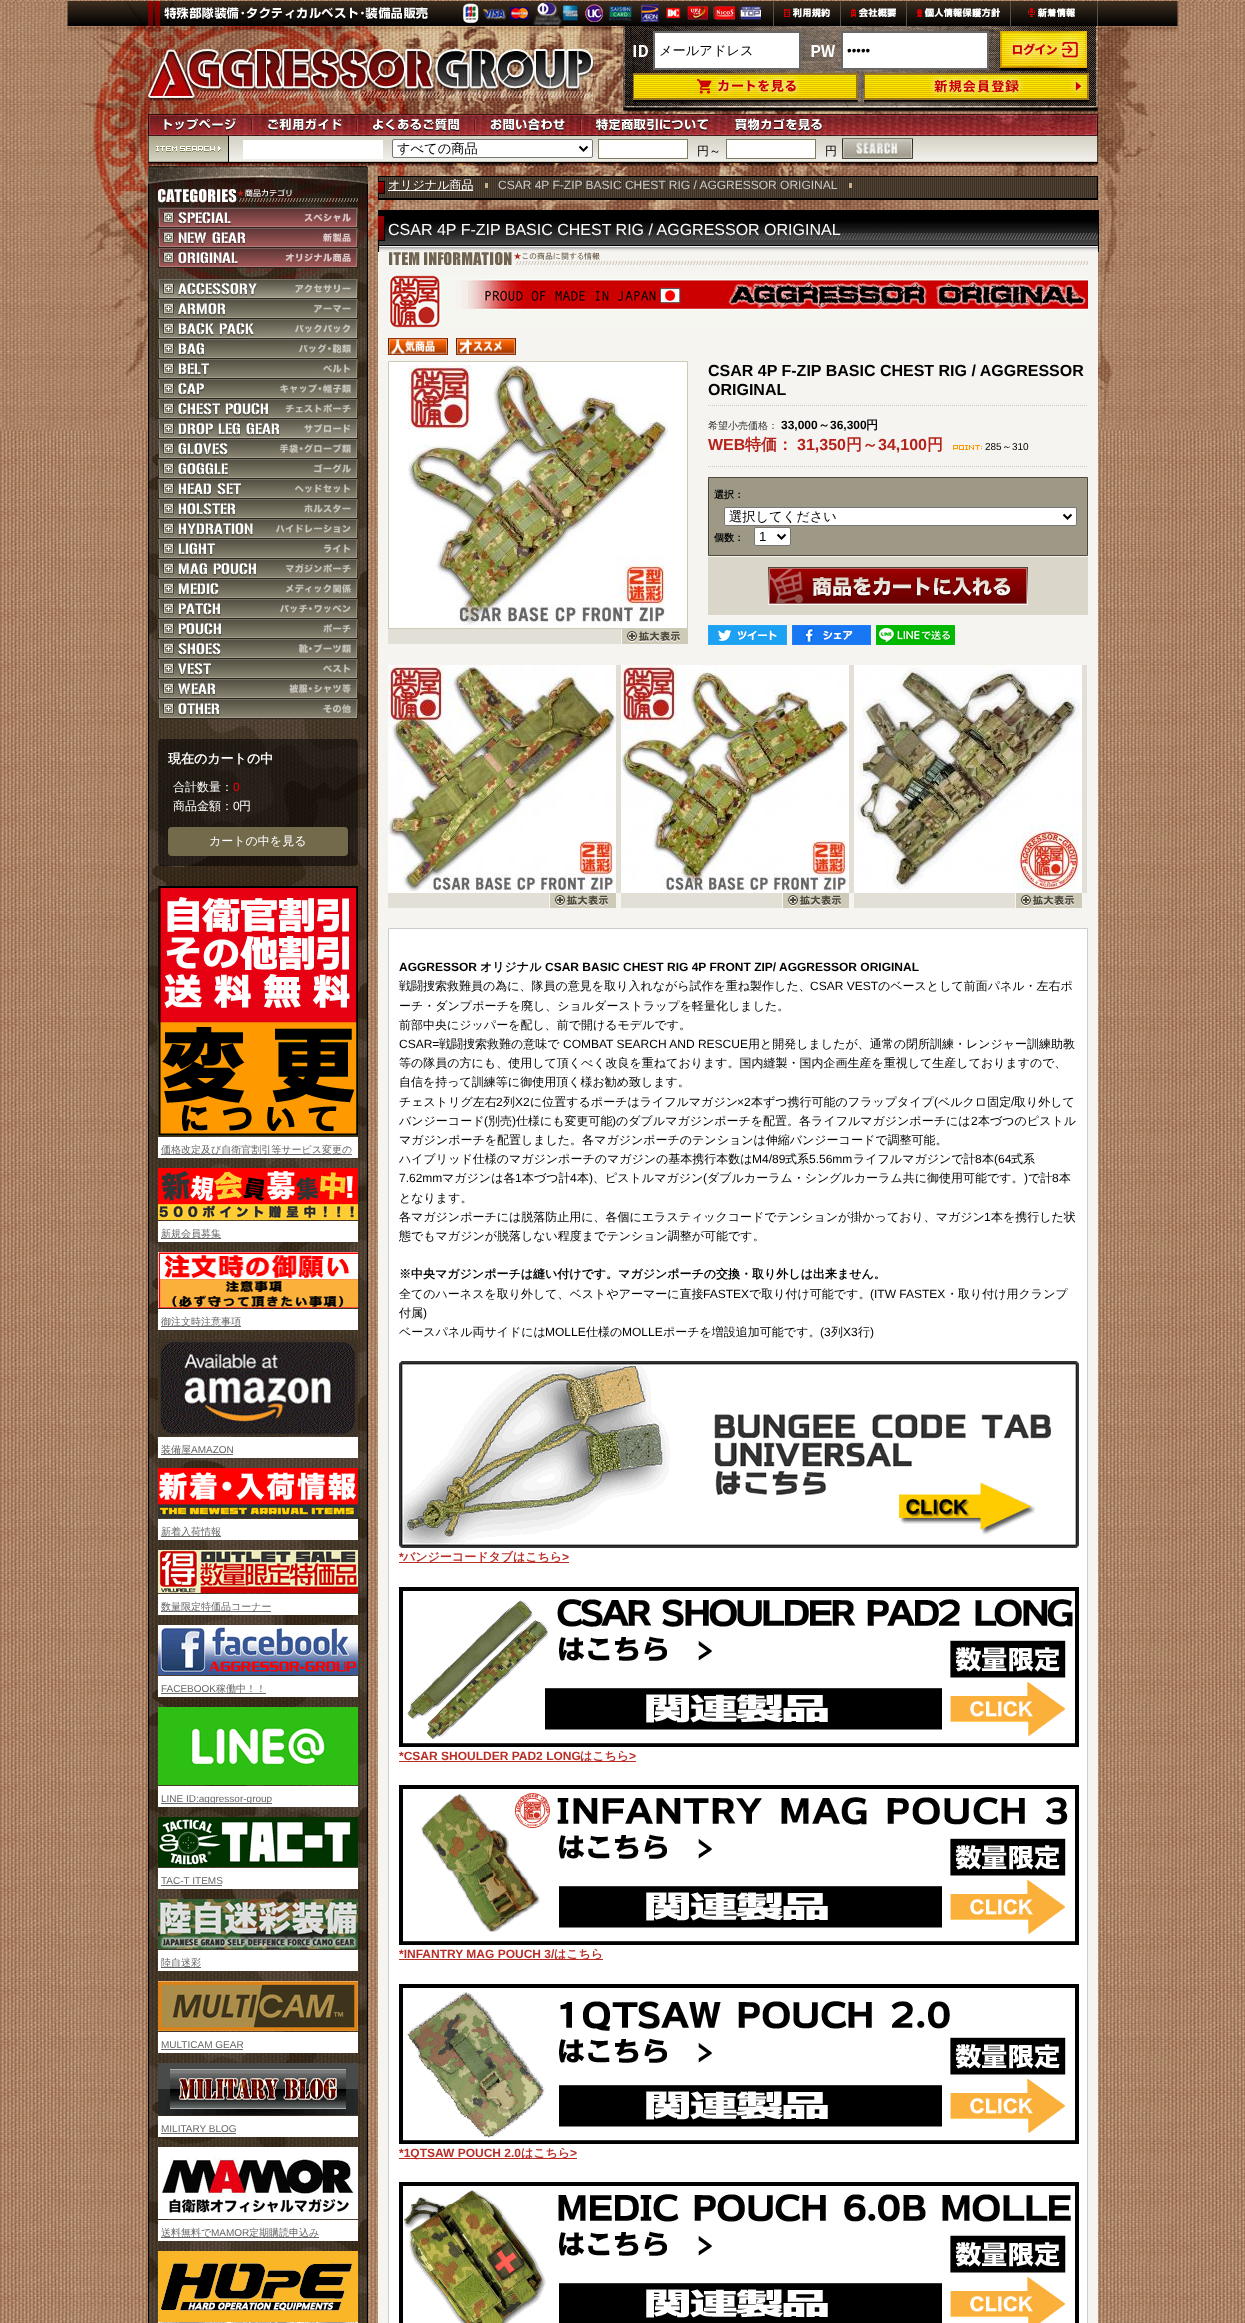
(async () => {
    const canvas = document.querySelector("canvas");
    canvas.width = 1245;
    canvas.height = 2323;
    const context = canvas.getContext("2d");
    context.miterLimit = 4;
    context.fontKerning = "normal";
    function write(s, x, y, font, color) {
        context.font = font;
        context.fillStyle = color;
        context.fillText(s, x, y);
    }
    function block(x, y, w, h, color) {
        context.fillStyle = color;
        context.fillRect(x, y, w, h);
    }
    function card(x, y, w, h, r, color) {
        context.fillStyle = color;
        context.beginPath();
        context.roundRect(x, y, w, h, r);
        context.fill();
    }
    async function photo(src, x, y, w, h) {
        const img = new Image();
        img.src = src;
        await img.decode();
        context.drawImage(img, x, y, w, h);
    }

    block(0, 0, 1245, 2323, "rgb(255, 255, 255)");
    await photo("media/1.png", 0, 0, 1245, 2323);
    await photo("media/2.png", 0, 1, 1245, 429);
    await photo("media/3.png", 148, 1, 280, 25);
    await photo("media/4.png", 463, 1, 298, 25);
    await photo("media/5.png", 773, 1, 62, 25);
    await photo("media/6.png", 840, 1, 67, 25);
    await photo("media/7.png", 915, 1, 96, 25);
    await photo("media/8.png", 1027, 1, 71, 25);
    await photo("media/9.png", 148, 49, 446, 52);
    await photo("media/10.png", 623, 26, 475, 86);
    await photo("media/11.png", 633, 45, 15, 12);
    context.beginPath();
    context.rect(654, 32, 146, 37);
    context.fill();
    context.strokeStyle = "rgb(102, 102, 102)";
    context.lineWidth = 2;
    context.stroke();
    write("メールアドレス", 659, 55, "500 13.25px WenQuanYi Zen Hei", "rgb(0, 0, 0)");
    await photo("media/12.png", 811, 45, 24, 12);
    context.fillStyle = "rgb(255, 255, 255)";
    context.beginPath();
    context.rect(842, 32, 146, 37);
    context.fill();
    context.stroke();
    write("•••••", 847, 55, "13.25px Liberation Sans", "rgb(0, 0, 0)");
    await photo("media/13.png", 999, 31, 91, 40);
    await photo("media/14.png", 633, 73, 225, 30);
    await photo("media/15.png", 864, 73, 225, 30);
    await photo("media/16.png", 835, 114, 263, 22);
    await photo("media/17.png", 148, 114, 103, 22);
    await photo("media/18.png", 251, 114, 107, 22);
    await photo("media/19.png", 358, 114, 116, 22);
    await photo("media/20.png", 474, 114, 106, 22);
    await photo("media/21.png", 580, 114, 143, 22);
    await photo("media/22.png", 723, 114, 112, 22);
    await photo("media/23.png", 148, 136, 950, 30);
    block(243, 140, 140, 19, "rgb(255, 255, 255)");
    context.beginPath();
    context.roundRect(392.5, 139.5, 200, 18, 1.5);
    context.fill();
    context.strokeStyle = "rgb(118, 118, 118)";
    context.lineWidth = 1;
    context.stroke();
    context.beginPath();
    context.moveTo(579.5, 146.5);
    context.lineTo(583.5, 150.5);
    context.lineTo(587.5, 146.5);
    context.strokeStyle = "rgb(0, 0, 0)";
    context.lineWidth = 2;
    context.stroke();
    write("すべての商品", 397, 153, "500 13.25px WenQuanYi Zen Hei", "rgb(0, 0, 0)");
    await photo("media/24.png", 598, 139, 90, 20);
    write("円～", 697, 155, "500 12px WenQuanYi Zen Hei", "rgb(0, 0, 0)");
    await photo("media/24.png", 726, 139, 90, 20);
    write("円", 825, 155, "500 12px WenQuanYi Zen Hei", "rgb(0, 0, 0)");
    await photo("media/25.png", 842, 138, 71, 21);
    await photo("media/26.png", 148, 166, 220, 23);
    await photo("media/27.png", 378, 176, 720, 24);
    block(485, 183, 3, 5, "rgb(202, 178, 147)");
    block(388, 190, 85, 1, "rgb(255, 255, 255)");
    write("オリジナル商品", 388, 189, "500 12px WenQuanYi Zen Hei", "rgb(255, 255, 255)");
    block(849, 183, 3, 5, "rgb(202, 178, 147)");
    write("CSAR 4P F-ZIP BASIC CHEST RIG / AGGRESSOR ORIGINAL", 498, 189, "12px Liberation Sans", "rgb(204, 204, 204)");
    await photo("media/28.png", 378, 210, 721, 42);
    write("CSAR 4P F-ZIP BASIC CHEST RIG / AGGRESSOR ORIGINAL", 388, 235, "16px Liberation Sans", "rgb(255, 255, 255)");
    block(378, 252, 720, 2071, "rgb(245, 244, 240)");
    await photo("media/29.png", 389, 252, 699, 13);
    await photo("media/30.png", 389, 275, 699, 53);
    await photo("media/31.png", 388, 338, 60, 17);
    await photo("media/32.png", 456, 338, 60, 17);
    context.fillStyle = "rgb(255, 255, 255)";
    context.beginPath();
    context.rect(388.5, 361.5, 299, 267);
    context.fill();
    context.strokeStyle = "rgb(205, 202, 184)";
    context.lineWidth = 1;
    context.stroke();
    await photo("media/33.png", 408, 365, 260, 260);
    block(388, 629, 233, 15, "rgb(226, 224, 214)");
    await photo("media/34.png", 621, 629, 67, 15);
    write("CSAR 4P F-ZIP BASIC CHEST RIG / AGGRESSOR", 708, 376, "bold 16px Liberation Sans", "rgb(0, 0, 0)");
    write("ORIGINAL", 708, 395, "bold 16px Liberation Sans", "rgb(0, 0, 0)");
    await photo("media/35.png", 708, 405, 379, 1);
    write("希望小売価格：", 708, 429, "500 10px WenQuanYi Zen Hei", "rgb(51, 51, 51)");
    write("33,000", 781, 429, "bold 12px Liberation Sans", "rgb(0, 0, 0)");
    write("～", 818, 429, "bold 12px WenQuanYi Zen Hei", "rgb(0, 0, 0)");
    write("36,300", 830, 429, "bold 12px Liberation Sans", "rgb(0, 0, 0)");
    write("円", 866, 429, "bold 12px WenQuanYi Zen Hei", "rgb(0, 0, 0)");
    write("WEB", 708, 450, "bold 16px Liberation Sans", "rgb(181, 34, 26)");
    write("特価：", 745, 450, "bold 16px WenQuanYi Zen Hei", "rgb(181, 34, 26)");
    write("31,350", 797, 450, "bold 16px Liberation Sans", "rgb(181, 34, 26)");
    write("円～", 846, 450, "bold 16px WenQuanYi Zen Hei", "rgb(181, 34, 26)");
    write("34,100", 878, 450, "bold 16px Liberation Sans", "rgb(181, 34, 26)");
    write("円", 927, 450, "bold 16px WenQuanYi Zen Hei", "rgb(181, 34, 26)");
    await photo("media/36.png", 953, 445, 29, 5);
    write("285", 985, 450, "10px Liberation Sans", "rgb(0, 0, 0)");
    write("～", 1002, 450, "500 10px WenQuanYi Zen Hei", "rgb(0, 0, 0)");
    write("310", 1012, 450, "10px Liberation Sans", "rgb(0, 0, 0)");
    await photo("media/35.png", 708, 466, 379, 1);
    context.fillStyle = "rgb(157, 153, 134)";
    context.beginPath();
    context.rect(708.5, 477.5, 379, 78);
    context.fill();
    context.strokeStyle = "rgb(80, 73, 58)";
    context.stroke();
    write("選択：", 714, 498, "bold 10px WenQuanYi Zen Hei", "rgb(0, 0, 0)");
    context.fillStyle = "rgb(255, 255, 255)";
    context.beginPath();
    context.roundRect(724.5, 507.5, 352, 18, 1.5);
    context.fill();
    context.strokeStyle = "rgb(118, 118, 118)";
    context.stroke();
    context.beginPath();
    context.moveTo(1063.5, 514.5);
    context.lineTo(1067.5, 518.5);
    context.lineTo(1071.5, 514.5);
    context.strokeStyle = "rgb(0, 0, 0)";
    context.lineWidth = 2;
    context.stroke();
    write("選択してください", 729, 521, "500 13.25px WenQuanYi Zen Hei", "rgb(0, 0, 0)");
    write("個数：", 714, 541, "bold 10px WenQuanYi Zen Hei", "rgb(0, 0, 0)");
    context.fillStyle = "rgb(255, 255, 255)";
    context.beginPath();
    context.roundRect(754.5, 527.5, 36, 18, 1.5);
    context.fill();
    context.strokeStyle = "rgb(118, 118, 118)";
    context.lineWidth = 1;
    context.stroke();
    context.beginPath();
    context.moveTo(777.5, 534.5);
    context.lineTo(781.5, 538.5);
    context.lineTo(785.5, 534.5);
    context.strokeStyle = "rgb(0, 0, 0)";
    context.lineWidth = 2;
    context.stroke();
    write("1", 759, 541, "13.25px Liberation Sans", "rgb(0, 0, 0)");
    block(708, 557, 380, 58, "rgb(218, 214, 201)");
    await photo("media/37.png", 768, 567, 260, 38);
    await photo("media/38.png", 708, 625, 79, 20);
    await photo("media/39.png", 792, 625, 79, 20);
    await photo("media/40.png", 876, 625, 79, 20);
    block(616, 665, 5, 228, "rgb(226, 224, 214)");
    await photo("media/41.png", 388, 665, 228, 228);
    block(388, 893, 161, 15, "rgb(226, 224, 214)");
    await photo("media/34.png", 549, 893, 67, 15);
    block(849, 665, 5, 228, "rgb(226, 224, 214)");
    await photo("media/42.png", 621, 665, 228, 228);
    block(621, 893, 161, 15, "rgb(226, 224, 214)");
    await photo("media/34.png", 782, 893, 67, 15);
    block(1082, 665, 5, 228, "rgb(226, 224, 214)");
    await photo("media/43.png", 854, 665, 228, 228);
    block(854, 893, 161, 15, "rgb(226, 224, 214)");
    await photo("media/34.png", 1015, 893, 67, 15);
    context.fillStyle = "rgb(255, 255, 255)";
    context.beginPath();
    context.rect(388.5, 928.5, 699, 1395);
    context.fill();
    context.strokeStyle = "rgb(204, 204, 204)";
    context.lineWidth = 1;
    context.stroke();
    write("AGGRESSOR", 399, 971, "bold 12px Liberation Sans", "rgb(0, 0, 0)");
    write("オリジナル", 480, 971, "bold 12px WenQuanYi Zen Hei", "rgb(0, 0, 0)");
    write("CSAR BASIC CHEST RIG 4P FRONT ZIP/ AGGRESSOR ORIGINAL", 545, 971, "bold 12px Liberation Sans", "rgb(0, 0, 0)");
    write("戦闘捜索救難員の為に、隊員の意見を取り入れながら試作を重ね製作した、", 399, 990, "500 12px WenQuanYi Zen Hei", "rgb(0, 0, 0)");
    write("CSAR VEST", 810, 990, "12px Liberation Sans", "rgb(0, 0, 0)");
    write("のベースとして前面パネル・左右ポ", 878, 990, "500 12px WenQuanYi Zen Hei", "rgb(0, 0, 0)");
    write("ーチ・ダンプポーチを廃し、ショルダーストラップを軽量化しました。", 399, 1010, "500 12px WenQuanYi Zen Hei", "rgb(0, 0, 0)");
    write("前部中央にジッパーを配し、前で開けるモデルです。", 399, 1029, "500 12px WenQuanYi Zen Hei", "rgb(0, 0, 0)");
    write("CSAR=", 399, 1048, "12px Liberation Sans", "rgb(0, 0, 0)");
    write("戦闘捜索救難の意味で", 439, 1048, "500 12px WenQuanYi Zen Hei", "rgb(0, 0, 0)");
    write("COMBAT SEARCH AND RESCUE", 563, 1048, "12px Liberation Sans", "rgb(0, 0, 0)");
    write("用と開発しましたが、通常の閉所訓練・レンジャー訓練助教", 748, 1048, "500 12px WenQuanYi Zen Hei", "rgb(0, 0, 0)");
    write("等の隊員の方にも、使用して頂くべく改良を重ねております。国内縫製・国内企画生産を重視して生産しておりますので、", 399, 1067, "500 12px WenQuanYi Zen Hei", "rgb(0, 0, 0)");
    write("自信を持って訓練等に御使用頂く様お勧め致します。", 399, 1086, "500 12px WenQuanYi Zen Hei", "rgb(0, 0, 0)");
    write("チェストリグ左右", 399, 1106, "500 12px WenQuanYi Zen Hei", "rgb(0, 0, 0)");
    write("2", 496, 1106, "12px Liberation Sans", "rgb(0, 0, 0)");
    write("列", 503, 1106, "500 12px WenQuanYi Zen Hei", "rgb(0, 0, 0)");
    write("X2", 515, 1106, "12px Liberation Sans", "rgb(0, 0, 0)");
    write("に位置するポーチはライフルマガジン", 530, 1106, "500 12px WenQuanYi Zen Hei", "rgb(0, 0, 0)");
    write("×2", 737, 1106, "12px Liberation Sans", "rgb(0, 0, 0)");
    write("本ずつ携行可能のフラップタイプ", 751, 1106, "500 12px WenQuanYi Zen Hei", "rgb(0, 0, 0)");
    write("(", 934, 1106, "12px Liberation Sans", "rgb(0, 0, 0)");
    write("ベルクロ固定", 938, 1106, "500 12px WenQuanYi Zen Hei", "rgb(0, 0, 0)");
    write("/", 1011, 1106, "12px Liberation Sans", "rgb(0, 0, 0)");
    write("取り外して", 1014, 1106, "500 12px WenQuanYi Zen Hei", "rgb(0, 0, 0)");
    write("バンジーコード", 399, 1125, "500 12px WenQuanYi Zen Hei", "rgb(0, 0, 0)");
    write("(", 484, 1125, "12px Liberation Sans", "rgb(0, 0, 0)");
    write("別売", 488, 1125, "500 12px WenQuanYi Zen Hei", "rgb(0, 0, 0)");
    write(")", 512, 1125, "12px Liberation Sans", "rgb(0, 0, 0)");
    write("仕様にも変更可能", 516, 1125, "500 12px WenQuanYi Zen Hei", "rgb(0, 0, 0)");
    write(")", 612, 1125, "12px Liberation Sans", "rgb(0, 0, 0)");
    write("のダブルマガジンポーチを配置。各ライフルマガジンポーチには", 616, 1125, "500 12px WenQuanYi Zen Hei", "rgb(0, 0, 0)");
    write("2", 971, 1125, "12px Liberation Sans", "rgb(0, 0, 0)");
    write("本づつのピストル", 978, 1125, "500 12px WenQuanYi Zen Hei", "rgb(0, 0, 0)");
    write("マガジンポーチを配置しました。各マガジンポーチのテンションは伸縮バンジーコードで調整可能。", 399, 1144, "500 12px WenQuanYi Zen Hei", "rgb(0, 0, 0)");
    write("ハイブリッド仕様のマガジンポーチのマガジンの基本携行本数は", 399, 1163, "500 12px WenQuanYi Zen Hei", "rgb(0, 0, 0)");
    write("M4/89", 752, 1163, "12px Liberation Sans", "rgb(0, 0, 0)");
    write("式系", 785, 1163, "500 12px WenQuanYi Zen Hei", "rgb(0, 0, 0)");
    write("5.56mm", 809, 1163, "12px Liberation Sans", "rgb(0, 0, 0)");
    write("ライフルマガジンで計", 853, 1163, "500 12px WenQuanYi Zen Hei", "rgb(0, 0, 0)");
    write("8", 975, 1163, "12px Liberation Sans", "rgb(0, 0, 0)");
    write("本", 982, 1163, "500 12px WenQuanYi Zen Hei", "rgb(0, 0, 0)");
    write("(64", 994, 1163, "12px Liberation Sans", "rgb(0, 0, 0)");
    write("式系", 1011, 1163, "500 12px WenQuanYi Zen Hei", "rgb(0, 0, 0)");
    write("7.62mm", 399, 1182, "12px Liberation Sans", "rgb(0, 0, 0)");
    write("マガジンは各", 442, 1182, "500 12px WenQuanYi Zen Hei", "rgb(0, 0, 0)");
    write("1", 515, 1182, "12px Liberation Sans", "rgb(0, 0, 0)");
    write("本づつ計", 522, 1182, "500 12px WenQuanYi Zen Hei", "rgb(0, 0, 0)");
    write("4", 570, 1182, "12px Liberation Sans", "rgb(0, 0, 0)");
    write("本", 577, 1182, "500 12px WenQuanYi Zen Hei", "rgb(0, 0, 0)");
    write(")", 589, 1182, "12px Liberation Sans", "rgb(0, 0, 0)");
    write("、ピストルマガジン", 593, 1182, "500 12px WenQuanYi Zen Hei", "rgb(0, 0, 0)");
    write("(", 703, 1182, "12px Liberation Sans", "rgb(0, 0, 0)");
    write("ダブルカーラム・シングルカーラム共に御使用可能です。", 707, 1182, "500 12px WenQuanYi Zen Hei", "rgb(0, 0, 0)");
    write(")", 1024, 1182, "12px Liberation Sans", "rgb(0, 0, 0)");
    write("で計", 1028, 1182, "500 12px WenQuanYi Zen Hei", "rgb(0, 0, 0)");
    write("8", 1052, 1182, "12px Liberation Sans", "rgb(0, 0, 0)");
    write("本", 1059, 1182, "500 12px WenQuanYi Zen Hei", "rgb(0, 0, 0)");
    write("となります。", 399, 1202, "500 12px WenQuanYi Zen Hei", "rgb(0, 0, 0)");
    write("各マガジンポーチには脱落防止用に、各個にエラスティックコードでテンションが掛かっており、マガジン", 399, 1221, "500 12px WenQuanYi Zen Hei", "rgb(0, 0, 0)");
    write("1", 984, 1221, "12px Liberation Sans", "rgb(0, 0, 0)");
    write("本を携行した状", 991, 1221, "500 12px WenQuanYi Zen Hei", "rgb(0, 0, 0)");
    write("態でもマガジンが脱落しない程度までテンション調整が可能です。", 399, 1240, "500 12px WenQuanYi Zen Hei", "rgb(0, 0, 0)");
    write("※中央マガジンポーチは縫い付けです。マガジンポーチの交換・取り外しは出来ません。", 399, 1278, "bold 12px WenQuanYi Zen Hei", "rgb(0, 0, 0)");
    write("全てのハーネスを取り外して、ベストやアーマーに直接", 399, 1298, "500 12px WenQuanYi Zen Hei", "rgb(0, 0, 0)");
    write("FASTEX", 703, 1298, "12px Liberation Sans", "rgb(0, 0, 0)");
    write("で取り付け可能です。", 749, 1298, "500 12px WenQuanYi Zen Hei", "rgb(0, 0, 0)");
    write("(ITW FASTEX", 870, 1298, "12px Liberation Sans", "rgb(0, 0, 0)");
    write("・取り付け用クランプ", 946, 1298, "500 12px WenQuanYi Zen Hei", "rgb(0, 0, 0)");
    write("付属", 399, 1317, "500 12px WenQuanYi Zen Hei", "rgb(0, 0, 0)");
    write(")", 423, 1317, "12px Liberation Sans", "rgb(0, 0, 0)");
    write("ベースパネル両サイドには", 399, 1336, "500 12px WenQuanYi Zen Hei", "rgb(0, 0, 0)");
    write("MOLLE", 545, 1336, "12px Liberation Sans", "rgb(0, 0, 0)");
    write("仕様の", 586, 1336, "500 12px WenQuanYi Zen Hei", "rgb(0, 0, 0)");
    write("MOLLE", 622, 1336, "12px Liberation Sans", "rgb(0, 0, 0)");
    write("ポーチを増設追加可能です。", 663, 1336, "500 12px WenQuanYi Zen Hei", "rgb(0, 0, 0)");
    write("(3", 820, 1336, "12px Liberation Sans", "rgb(0, 0, 0)");
    write("列", 831, 1336, "500 12px WenQuanYi Zen Hei", "rgb(0, 0, 0)");
    write("X3", 843, 1336, "12px Liberation Sans", "rgb(0, 0, 0)");
    write("行", 858, 1336, "500 12px WenQuanYi Zen Hei", "rgb(0, 0, 0)");
    write(")", 870, 1336, "12px Liberation Sans", "rgb(0, 0, 0)");
    await photo("media/44.png", 399, 1361, 680, 187);
    write("*", 399, 1561, "bold 12px Liberation Sans", "rgb(184, 46, 39)");
    block(399, 1562, 170, 1, "rgb(184, 46, 39)");
    write("バンジーコードタブはこちら", 403, 1561, "bold 12px WenQuanYi Zen Hei", "rgb(184, 46, 39)");
    write(">", 562, 1561, "bold 12px Liberation Sans", "rgb(184, 46, 39)");
    await photo("media/45.png", 399, 1587, 680, 160);
    write("*CSAR SHOULDER PAD2 LONG", 399, 1760, "bold 12px Liberation Sans", "rgb(184, 46, 39)");
    block(399, 1761, 237, 1, "rgb(184, 46, 39)");
    write("はこちら", 580, 1760, "bold 12px WenQuanYi Zen Hei", "rgb(184, 46, 39)");
    write(">", 629, 1760, "bold 12px Liberation Sans", "rgb(184, 46, 39)");
    await photo("media/46.png", 399, 1785, 680, 160);
    write("*INFANTRY MAG POUCH 3/", 399, 1958, "bold 12px Liberation Sans", "rgb(184, 46, 39)");
    block(399, 1959, 204, 1, "rgb(184, 46, 39)");
    write("はこちら", 554, 1958, "bold 12px WenQuanYi Zen Hei", "rgb(184, 46, 39)");
    await photo("media/47.png", 399, 1984, 680, 160);
    block(399, 2158, 178, 1, "rgb(184, 46, 39)");
    write("*1QTSAW POUCH 2.0", 399, 2157, "bold 12px Liberation Sans", "rgb(184, 46, 39)");
    write("はこちら", 521, 2157, "bold 12px WenQuanYi Zen Hei", "rgb(184, 46, 39)");
    write(">", 570, 2157, "bold 12px Liberation Sans", "rgb(184, 46, 39)");
    await photo("media/48.png", 399, 2182, 680, 141);
    await photo("media/49.png", 148, 189, 220, 90);
    await photo("media/50.png", 158, 189, 200, 19);
    await photo("media/51.png", 158, 208, 200, 20);
    await photo("media/52.png", 158, 228, 200, 20);
    await photo("media/53.png", 158, 248, 200, 20);
    await photo("media/54.png", 148, 279, 220, 2044);
    await photo("media/55.png", 158, 279, 200, 20);
    await photo("media/56.png", 158, 299, 200, 20);
    await photo("media/57.png", 158, 319, 200, 20);
    await photo("media/58.png", 158, 339, 200, 20);
    await photo("media/59.png", 158, 359, 200, 20);
    await photo("media/60.png", 158, 379, 200, 20);
    await photo("media/61.png", 158, 399, 200, 20);
    await photo("media/62.png", 158, 419, 200, 20);
    await photo("media/63.png", 158, 439, 200, 20);
    await photo("media/64.png", 158, 459, 200, 20);
    await photo("media/65.png", 158, 479, 200, 20);
    await photo("media/66.png", 158, 499, 200, 20);
    await photo("media/67.png", 158, 519, 200, 20);
    await photo("media/68.png", 158, 539, 200, 20);
    await photo("media/69.png", 158, 559, 200, 20);
    await photo("media/70.png", 158, 579, 200, 20);
    await photo("media/71.png", 158, 599, 200, 20);
    await photo("media/72.png", 158, 619, 200, 20);
    await photo("media/73.png", 158, 639, 200, 20);
    await photo("media/74.png", 158, 659, 200, 20);
    await photo("media/75.png", 158, 679, 200, 20);
    await photo("media/76.png", 158, 699, 200, 20);
    card(158, 739, 200, 127, 4, "rgba(0, 0, 0, 0.5)");
    write("現在のカートの中", 168, 763, "bold 13px WenQuanYi Zen Hei", "rgb(255, 255, 255)");
    write("合計数量：", 173, 791, "500 12px WenQuanYi Zen Hei", "rgb(255, 255, 255)");
    write("0", 233, 791, "12px Liberation Sans", "rgb(255, 0, 0)");
    write("商品金額：", 173, 810, "500 12px WenQuanYi Zen Hei", "rgb(255, 255, 255)");
    write("0", 233, 810, "12px Liberation Sans", "rgb(255, 255, 255)");
    write("円", 239, 810, "500 12px WenQuanYi Zen Hei", "rgb(255, 255, 255)");
    card(168, 827, 180, 29, 4, "rgb(115, 106, 75)");
    write("カートの中を見る", 209, 845, "500 12px WenQuanYi Zen Hei", "rgb(255, 255, 255)");
    await photo("media/77.png", 158, 886, 200, 250);
    block(158, 1137, 200, 21, "rgb(255, 255, 255)");
    block(161, 1154, 191, 1, "rgb(102, 102, 102)");
    write("価格改定及び自衛官割引等サービス変更の", 161, 1153, "500 10px WenQuanYi Zen Hei", "rgb(102, 102, 102)");
    await photo("media/78.png", 158, 1168, 200, 52);
    block(158, 1221, 200, 21, "rgb(255, 255, 255)");
    block(161, 1238, 60, 1, "rgb(102, 102, 102)");
    write("新規会員募集", 161, 1237, "500 10px WenQuanYi Zen Hei", "rgb(102, 102, 102)");
    await photo("media/79.png", 158, 1252, 200, 56);
    block(158, 1309, 200, 21, "rgb(255, 255, 255)");
    block(161, 1326, 80, 1, "rgb(102, 102, 102)");
    write("御注文時注意事項", 161, 1325, "500 10px WenQuanYi Zen Hei", "rgb(102, 102, 102)");
    await photo("media/80.png", 158, 1340, 200, 96);
    block(158, 1437, 200, 21, "rgb(255, 255, 255)");
    block(161, 1454, 72, 1, "rgb(102, 102, 102)");
    write("装備屋", 161, 1453, "500 10px WenQuanYi Zen Hei", "rgb(102, 102, 102)");
    write("AMAZON", 191, 1453, "10px Liberation Sans", "rgb(102, 102, 102)");
    await photo("media/81.png", 158, 1468, 200, 50);
    block(158, 1519, 200, 21, "rgb(255, 255, 255)");
    block(161, 1536, 60, 1, "rgb(102, 102, 102)");
    write("新着入荷情報", 161, 1535, "500 10px WenQuanYi Zen Hei", "rgb(102, 102, 102)");
    await photo("media/82.png", 158, 1550, 200, 43);
    block(158, 1594, 200, 21, "rgb(255, 255, 255)");
    block(161, 1611, 110, 1, "rgb(102, 102, 102)");
    write("数量限定特価品コーナー", 161, 1610, "500 10px WenQuanYi Zen Hei", "rgb(102, 102, 102)");
    await photo("media/83.png", 158, 1625, 200, 50);
    block(158, 1676, 200, 21, "rgb(255, 255, 255)");
    write("FACEBOOK", 161, 1692, "10px Liberation Sans", "rgb(102, 102, 102)");
    block(161, 1693, 105, 1, "rgb(102, 102, 102)");
    write("稼働中！！", 216, 1692, "500 10px WenQuanYi Zen Hei", "rgb(102, 102, 102)");
    await photo("media/84.png", 158, 1707, 200, 78);
    block(158, 1786, 200, 21, "rgb(255, 255, 255)");
    block(161, 1803, 111, 1, "rgb(102, 102, 102)");
    write("LINE ID:aggressor-group", 161, 1802, "10px Liberation Sans", "rgb(102, 102, 102)");
    await photo("media/85.png", 158, 1817, 200, 50);
    block(158, 1868, 200, 21, "rgb(255, 255, 255)");
    write("TAC-T ITEMS", 161, 1884, "10px Liberation Sans", "rgb(102, 102, 102)");
    block(161, 1885, 61, 1, "rgb(102, 102, 102)");
    await photo("media/86.png", 158, 1899, 200, 50);
    block(158, 1950, 200, 21, "rgb(255, 255, 255)");
    block(161, 1967, 40, 1, "rgb(102, 102, 102)");
    write("陸自迷彩", 161, 1966, "500 10px WenQuanYi Zen Hei", "rgb(102, 102, 102)");
    await photo("media/87.png", 158, 1981, 200, 50);
    block(158, 2032, 200, 21, "rgb(255, 255, 255)");
    write("MULTICAM GEAR", 161, 2048, "10px Liberation Sans", "rgb(102, 102, 102)");
    block(161, 2049, 82, 1, "rgb(102, 102, 102)");
    await photo("media/88.png", 158, 2063, 200, 52);
    block(158, 2116, 200, 21, "rgb(255, 255, 255)");
    write("MILITARY BLOG", 161, 2132, "10px Liberation Sans", "rgb(102, 102, 102)");
    block(161, 2133, 75, 1, "rgb(102, 102, 102)");
    await photo("media/89.png", 158, 2147, 200, 72);
    block(158, 2220, 200, 21, "rgb(255, 255, 255)");
    block(161, 2237, 158, 1, "rgb(102, 102, 102)");
    write("送料無料で", 161, 2236, "500 10px WenQuanYi Zen Hei", "rgb(102, 102, 102)");
    write("MAMOR", 211, 2236, "10px Liberation Sans", "rgb(102, 102, 102)");
    write("定期購読申込み", 249, 2236, "500 10px WenQuanYi Zen Hei", "rgb(102, 102, 102)");
    await photo("media/90.png", 158, 2251, 200, 72);
})();
